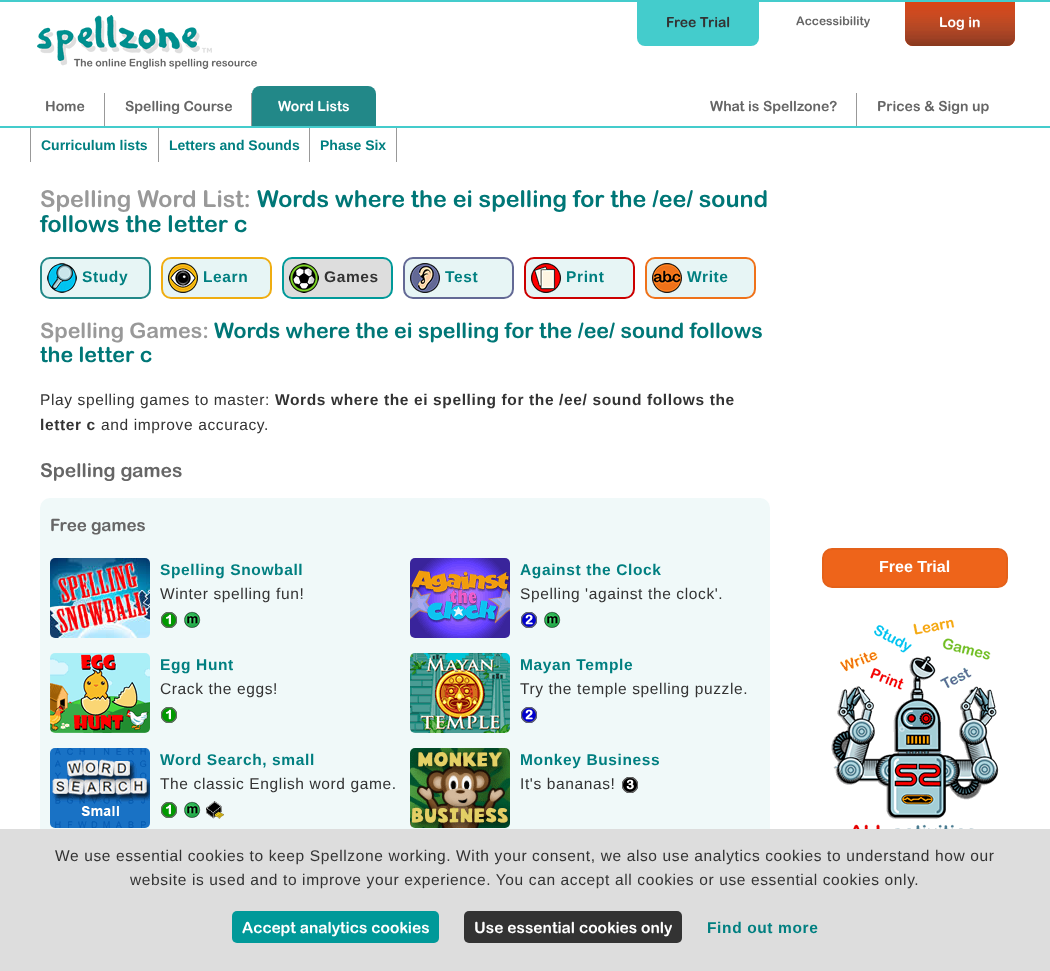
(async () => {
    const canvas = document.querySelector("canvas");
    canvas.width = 1050;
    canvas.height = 971;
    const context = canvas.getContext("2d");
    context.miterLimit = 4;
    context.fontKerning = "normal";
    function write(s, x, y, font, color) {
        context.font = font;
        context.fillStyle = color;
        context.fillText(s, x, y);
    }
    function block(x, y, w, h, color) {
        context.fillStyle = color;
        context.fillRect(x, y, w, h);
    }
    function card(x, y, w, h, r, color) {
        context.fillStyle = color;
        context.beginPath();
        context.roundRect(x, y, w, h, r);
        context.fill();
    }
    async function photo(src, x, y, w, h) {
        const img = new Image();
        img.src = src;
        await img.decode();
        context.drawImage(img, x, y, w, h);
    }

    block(0, 0, 1050, 971, "rgb(255, 255, 255)");
    block(0, 0, 1050, 2, "rgb(68, 204, 204)");
    block(0, 126, 1050, 2, "rgb(68, 204, 204)");
    await photo("media/1.png", 37, 15, 220, 54);
    context.beginPath();
    context.roundRect(637, 2, 122, 44, [0, 0, 8, 8]);
    context.fill();
    write("Free Trial", 666, 27, "bold 14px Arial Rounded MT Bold", "rgb(51, 51, 51)");
    write("Accessibility", 796, 25, "bold 12px Arial Rounded MT Bold", "rgb(102, 102, 102)");
    context.fillStyle = "rgb(234, 65, 9)";
    context.beginPath();
    context.roundRect(905, 2, 110, 44, [0, 0, 8, 8]);
    context.fill();
    await photo("media/2.png", 905, 2, 110, 44);
    write("Log in", 939, 27, "bold 14px Arial Rounded MT Bold", "rgb(255, 255, 255)");
    write("Home", 45, 111, "bold 14px Arial Rounded MT Bold", "rgb(102, 102, 102)");
    block(104, 93, 1, 33, "rgb(153, 153, 153)");
    write("Spelling Course", 125, 111, "bold 14px Arial Rounded MT Bold", "rgb(102, 102, 102)");
    block(251, 93, 1, 33, "rgb(153, 153, 153)");
    context.fillStyle = "rgb(34, 136, 136)";
    context.beginPath();
    context.roundRect(252, 86, 66, 40, [8, 0, 0, 0]);
    context.fill();
    context.beginPath();
    context.roundRect(318, 86, 58, 40, [0, 8, 0, 0]);
    context.fill();
    write("Word Lists", 278, 111, "bold 14px Arial Rounded MT Bold", "rgb(255, 255, 255)");
    write("What is Spellzone?", 710, 111, "bold 14px Arial Rounded MT Bold", "rgb(102, 102, 102)");
    block(856, 93, 1, 33, "rgb(153, 153, 153)");
    write("Prices & Sign up", 877, 111, "bold 14px Arial Rounded MT Bold", "rgb(102, 102, 102)");
    block(30, 128, 1, 34, "rgb(153, 153, 153)");
    write("Curriculum lists", 41, 150, "bold 14px Liberation Sans", "rgb(0, 127, 128)");
    block(158, 128, 1, 34, "rgb(153, 153, 153)");
    write("Letters and Sounds", 169, 150, "bold 14px Liberation Sans", "rgb(0, 127, 128)");
    block(396, 128, 1, 34, "rgb(153, 153, 153)");
    block(309, 128, 1, 34, "rgb(153, 153, 153)");
    write("Phase Six", 320, 150, "bold 14px Liberation Sans", "rgb(0, 127, 128)");
    write("Spelling Word List:", 40, 207, "bold 23.25px Arial Rounded MT Bold", "rgb(153, 153, 153)");
    write("Words where the ei spelling for the /ee/ sound", 257, 207, "bold 23.25px Arial Rounded MT Bold", "rgb(0, 119, 119)");
    write("follows the letter c", 40, 232, "bold 23.25px Arial Rounded MT Bold", "rgb(0, 119, 119)");
    context.fillStyle = "rgb(231, 245, 245)";
    context.beginPath();
    context.roundRect(41, 258, 109, 40, 9);
    context.fill();
    context.strokeStyle = "rgb(34, 136, 136)";
    context.lineWidth = 2;
    context.stroke();
    await photo("media/3.png", 47, 263, 30, 30);
    context.letterSpacing = "0.62px";
    write("Study", 82, 282, "bold 15.52px Liberation Sans", "rgb(0, 127, 128)");
    context.fillStyle = "rgb(231, 245, 245)";
    context.beginPath();
    context.roundRect(162, 258, 109, 40, 9);
    context.fill();
    context.strokeStyle = "rgb(239, 173, 17)";
    context.stroke();
    await photo("media/4.png", 168, 263, 30, 30);
    write("Learn", 203, 282, "bold 15.52px Liberation Sans", "rgb(0, 127, 128)");
    context.fillStyle = "rgb(221, 221, 221)";
    context.beginPath();
    context.roundRect(283, 258, 109, 40, 9);
    context.fill();
    context.strokeStyle = "rgb(0, 153, 153)";
    context.stroke();
    await photo("media/5.png", 289, 263, 30, 30);
    write("Games", 324, 282, "bold 15.52px Liberation Sans", "rgb(51, 51, 51)");
    context.fillStyle = "rgb(231, 245, 245)";
    context.beginPath();
    context.roundRect(404, 258, 109, 40, 9);
    context.fill();
    context.strokeStyle = "rgb(99, 105, 149)";
    context.stroke();
    await photo("media/6.png", 410, 263, 30, 30);
    write("Test", 445, 282, "bold 15.52px Liberation Sans", "rgb(0, 127, 128)");
    context.fillStyle = "rgb(231, 245, 245)";
    context.beginPath();
    context.roundRect(525, 258, 109, 40, 9);
    context.fill();
    context.strokeStyle = "rgb(204, 0, 0)";
    context.stroke();
    await photo("media/7.png", 531, 263, 30, 30);
    write("Print", 566, 282, "bold 15.52px Liberation Sans", "rgb(0, 127, 128)");
    context.fillStyle = "rgb(231, 245, 245)";
    context.beginPath();
    context.roundRect(646, 258, 109, 40, 9);
    context.fill();
    context.strokeStyle = "rgb(239, 114, 26)";
    context.stroke();
    await photo("media/8.png", 652, 263, 30, 30);
    write("Write", 687, 282, "bold 15.52px Liberation Sans", "rgb(0, 127, 128)");
    context.letterSpacing = "0px";
    write("Spelling Games:", 40, 338, "bold 21.4px Arial Rounded MT Bold", "rgb(153, 153, 153)");
    write("Words where the ei spelling for the /ee/ sound follows", 214, 338, "bold 21.4px Arial Rounded MT Bold", "rgb(0, 119, 119)");
    write("the letter c", 40, 362, "bold 21.4px Arial Rounded MT Bold", "rgb(0, 119, 119)");
    context.letterSpacing = "0.62px";
    write("Play spelling games to master:", 40, 405, "15.52px Liberation Sans", "rgb(51, 51, 51)");
    write("Words where the ei spelling for the /ee/ sound follows the", 275, 405, "bold 15.52px Liberation Sans", "rgb(51, 51, 51)");
    write("letter c", 40, 430, "bold 15.52px Liberation Sans", "rgb(51, 51, 51)");
    write("and improve accuracy.", 101, 430, "15.52px Liberation Sans", "rgb(51, 51, 51)");
    context.letterSpacing = "0px";
    write("Spelling games", 40, 477, "bold 19.25px Arial Rounded MT Bold", "rgb(102, 102, 102)");
    card(40, 498, 730, 360, 10, "rgb(240, 249, 249)");
    write("Free games", 50, 531, "bold 17px Arial Rounded MT Bold", "rgb(102, 102, 102)");
    await photo("media/9.png", 50, 558, 100, 80);
    context.letterSpacing = "0.62px";
    write("Spelling Snowball", 160, 575, "bold 15.52px Liberation Sans", "rgb(0, 127, 128)");
    write("Winter spelling fun!", 160, 599, "15.52px Liberation Sans", "rgb(51, 51, 51)");
    await photo("media/10.png", 161, 612, 16, 16);
    await photo("media/11.png", 184, 611, 17, 17);
    await photo("media/12.png", 50, 653, 100, 80);
    write("Egg Hunt", 160, 670, "bold 15.52px Liberation Sans", "rgb(0, 127, 128)");
    write("Crack the eggs!", 160, 694, "15.52px Liberation Sans", "rgb(51, 51, 51)");
    await photo("media/10.png", 161, 707, 16, 16);
    await photo("media/13.png", 50, 748, 100, 80);
    write("Word Search, small", 160, 765, "bold 15.52px Liberation Sans", "rgb(0, 127, 128)");
    write("The classic English word game.", 160, 789, "15.52px Liberation Sans", "rgb(51, 51, 51)");
    await photo("media/10.png", 161, 802, 16, 16);
    await photo("media/11.png", 184, 801, 17, 17);
    await photo("media/14.png", 206, 801, 18, 18);
    await photo("media/15.png", 410, 558, 100, 80);
    write("Against the Clock", 520, 575, "bold 15.52px Liberation Sans", "rgb(0, 127, 128)");
    write("Spelling 'against the clock'.", 520, 599, "15.52px Liberation Sans", "rgb(51, 51, 51)");
    await photo("media/16.png", 521, 612, 16, 16);
    await photo("media/11.png", 544, 611, 17, 17);
    await photo("media/17.png", 410, 653, 100, 80);
    write("Mayan Temple", 520, 670, "bold 15.52px Liberation Sans", "rgb(0, 127, 128)");
    write("Try the temple spelling puzzle.", 520, 694, "15.52px Liberation Sans", "rgb(51, 51, 51)");
    await photo("media/16.png", 521, 707, 16, 16);
    await photo("media/18.png", 410, 748, 100, 80);
    write("Monkey Business", 520, 765, "bold 15.52px Liberation Sans", "rgb(0, 127, 128)");
    write("It's bananas!", 520, 789, "15.52px Liberation Sans", "rgb(51, 51, 51)");
    await photo("media/19.png", 622, 777, 16, 16);
    context.fillStyle = "rgb(238, 100, 26)";
    context.beginPath();
    context.roundRect(823, 549, 184, 38, 9);
    context.fill();
    context.strokeStyle = "rgb(228, 97, 26)";
    context.stroke();
    context.letterSpacing = "0px";
    write("Free Trial", 879, 572, "bold 16px Liberation Sans", "rgb(255, 255, 255)");
    await photo("media/20.png", 831, 619, 168, 210);
    block(0, 829, 1050, 142, "rgb(221, 221, 221)");
    context.letterSpacing = "0.62px";
    write("We use essential cookies to keep Spellzone working. With your consent, we also use analytics cookies to understand how our", 55, 861, "15.52px Liberation Sans", "rgb(51, 51, 51)");
    write("website is used and to improve your experience. You can accept all cookies or use essential cookies only.", 130, 885, "15.52px Liberation Sans", "rgb(51, 51, 51)");
    card(232, 911, 207, 32, 5, "rgb(0, 153, 153)");
    context.letterSpacing = "0px";
    write("Accept analytics cookies", 242, 933, "bold 15.52px Arial Rounded MT Bold", "rgb(255, 255, 255)");
    card(464, 911, 218, 32, 5, "rgb(51, 51, 51)");
    write("Use essential cookies only", 474, 933, "bold 15.52px Arial Rounded MT Bold", "rgb(255, 255, 255)");
    context.letterSpacing = "0.62px";
    write("Find out more", 707, 933, "bold 15.52px Liberation Sans", "rgb(0, 127, 128)");
})();
